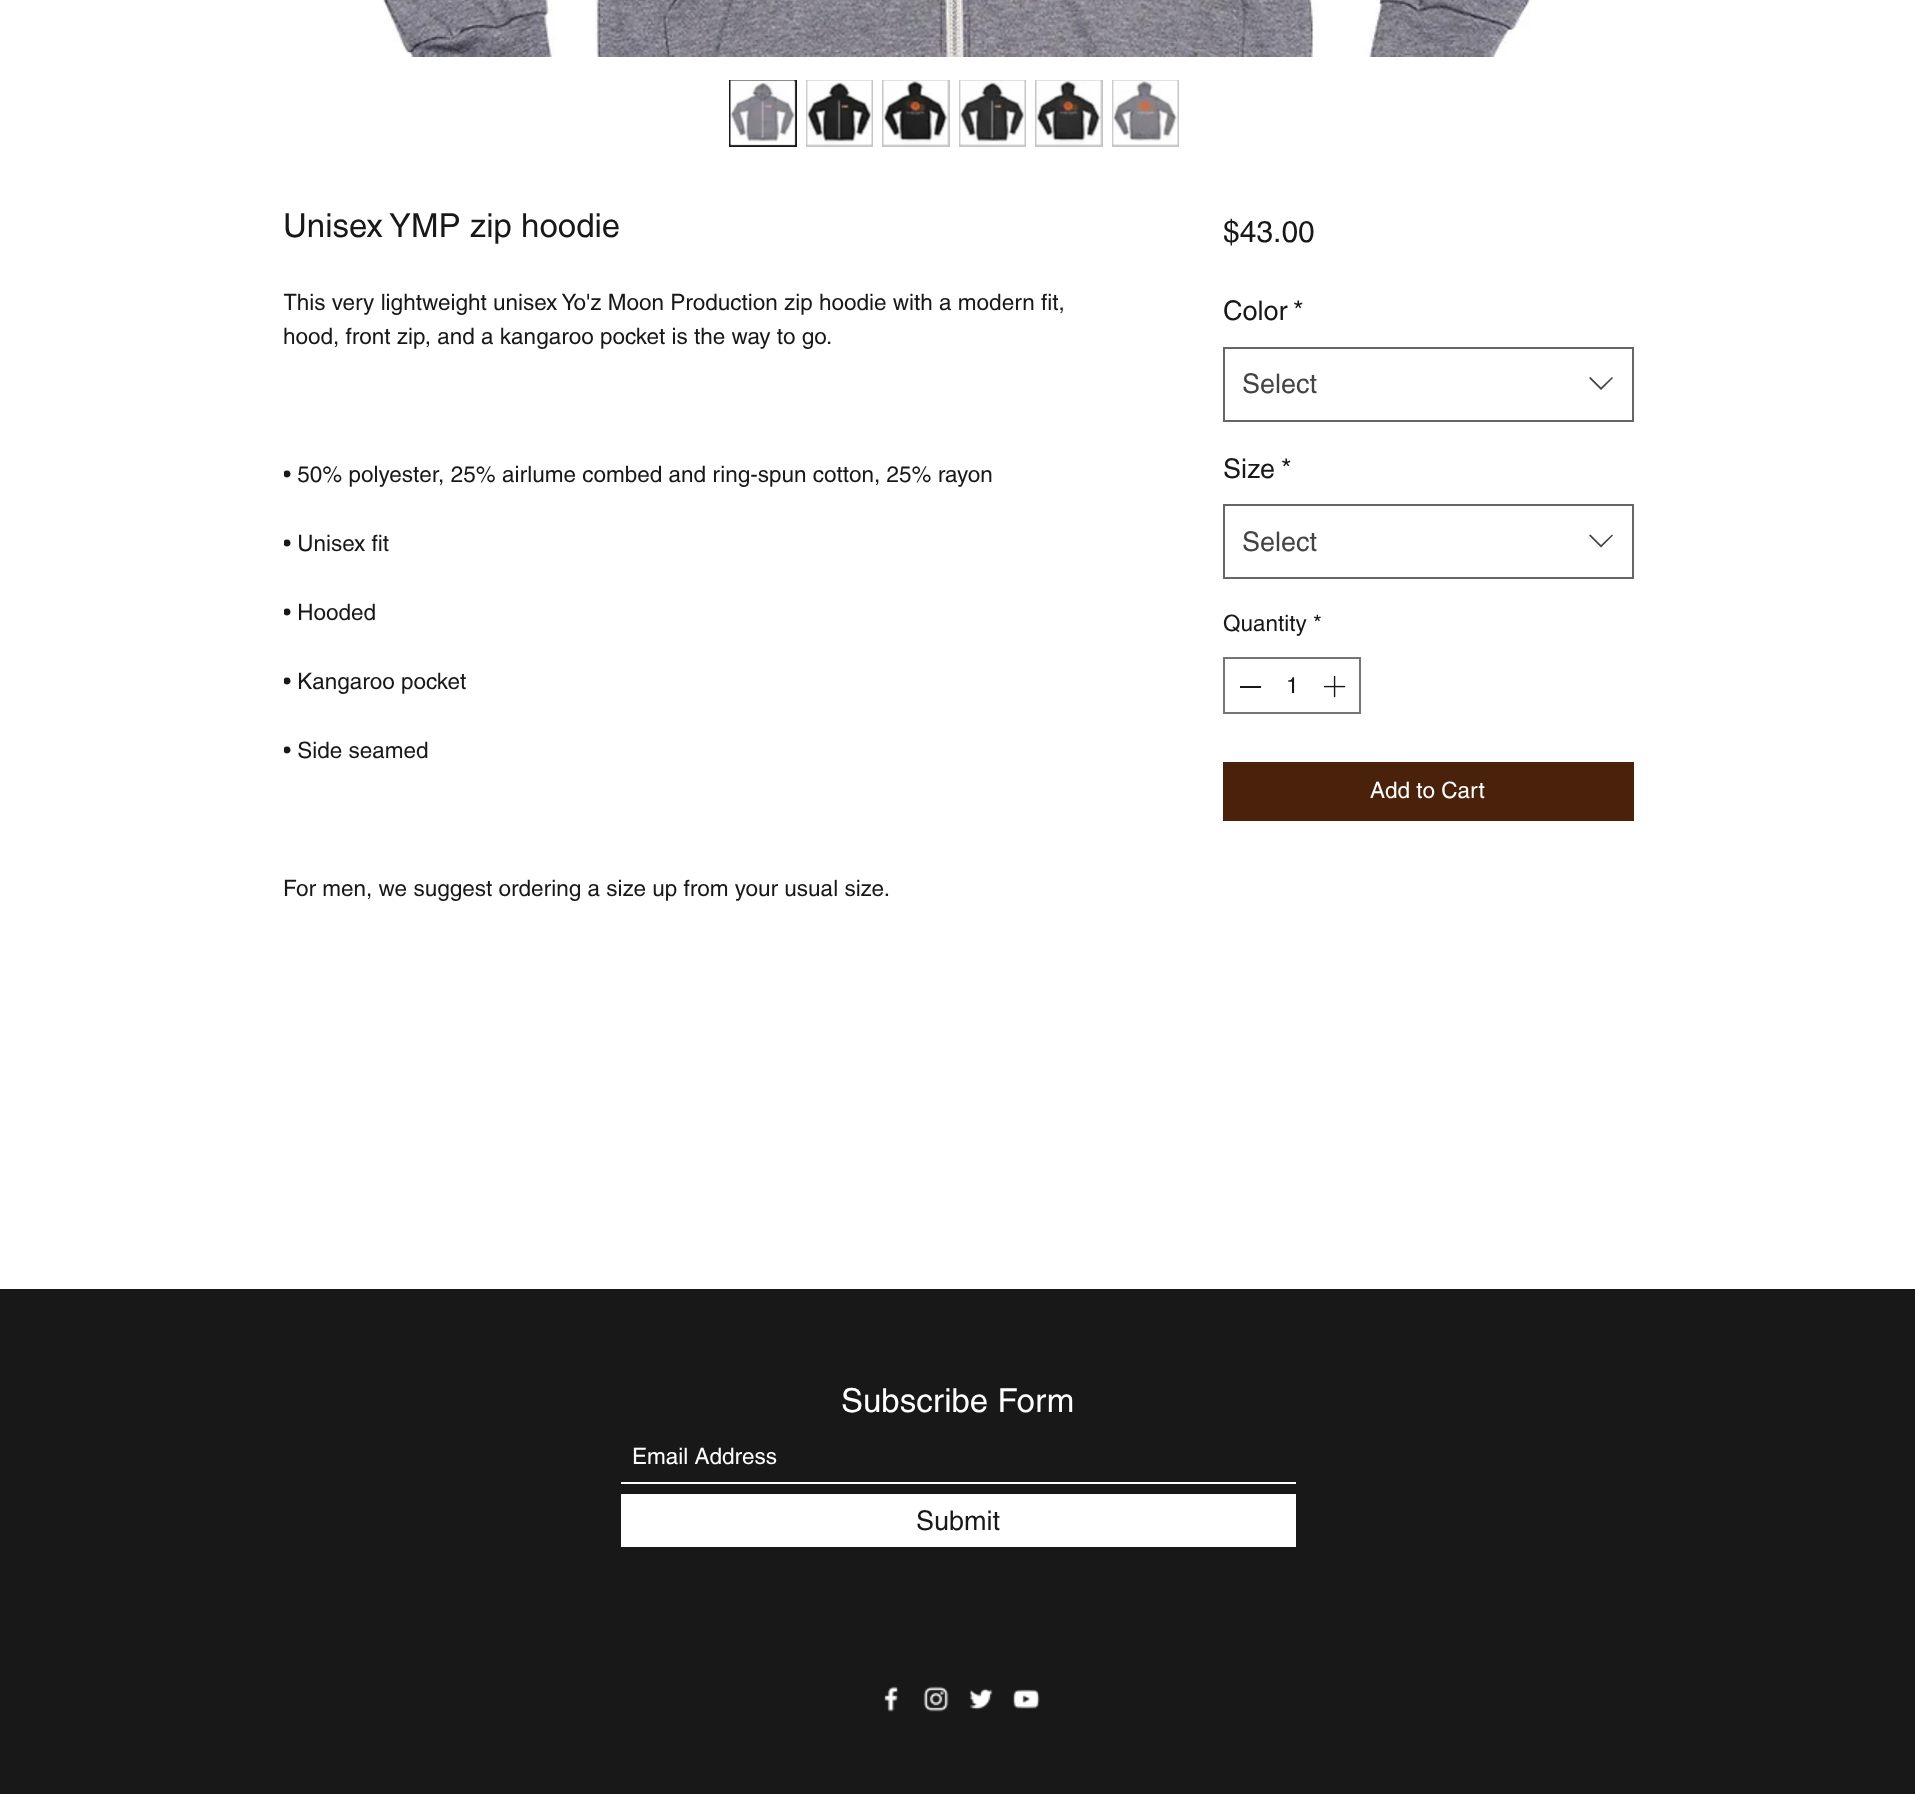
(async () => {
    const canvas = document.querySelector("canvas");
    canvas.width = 1915;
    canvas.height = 1794;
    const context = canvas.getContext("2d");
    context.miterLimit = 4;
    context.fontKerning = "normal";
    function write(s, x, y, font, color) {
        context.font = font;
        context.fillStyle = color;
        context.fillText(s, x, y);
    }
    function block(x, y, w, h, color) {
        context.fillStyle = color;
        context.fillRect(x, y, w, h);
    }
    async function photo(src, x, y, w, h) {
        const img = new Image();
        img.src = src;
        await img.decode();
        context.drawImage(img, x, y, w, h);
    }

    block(0, 0, 1915, 1794, "rgb(255, 255, 255)");
    await photo("media/1.png", 382, 0, 1149, 57);
    context.fillStyle = "rgb(197, 197, 197)";
    context.beginPath();
    context.rect(730, 81, 66, 65);
    context.fill();
    context.strokeStyle = "rgb(24, 24, 24)";
    context.lineWidth = 2;
    context.stroke();
    await photo("media/2.png", 730, 80, 66, 66);
    block(806, 80, 67, 67, "rgb(197, 197, 197)");
    await photo("media/3.png", 806, 80, 66, 66);
    block(882, 80, 68, 67, "rgb(197, 197, 197)");
    await photo("media/4.png", 883, 80, 66, 66);
    block(959, 80, 67, 67, "rgb(197, 197, 197)");
    await photo("media/5.png", 959, 80, 66, 66);
    block(1035, 80, 68, 67, "rgb(197, 197, 197)");
    await photo("media/6.png", 1036, 80, 66, 66);
    block(1112, 80, 67, 67, "rgb(197, 197, 197)");
    await photo("media/7.png", 1112, 80, 66, 66);
    write("Unisex YMP zip hoodie", 283, 237, "33px helvetica", "rgb(24, 24, 24)");
    context.save();
    context.beginPath();
    context.rect(284, 285, 819, 656);
    context.clip();
    write("This very lightweight unisex Yo'z Moon Production zip hoodie with a modern fit,", 283, 310, "22.5px helvetica", "rgb(24, 24, 24)");
    context.restore();
    write("hood, front zip, and a kangaroo pocket is the way to go.", 283, 344, "22.5px helvetica", "rgb(24, 24, 24)");
    context.save();
    context.beginPath();
    context.rect(284, 285, 819, 656);
    context.clip();
    write("• 50% polyester, 25% airlume combed and ring-spun cotton, 25% rayon", 283, 482, "22.5px helvetica", "rgb(24, 24, 24)");
    write("• Unisex fit", 283, 551, "22.5px helvetica", "rgb(24, 24, 24)");
    write("• Hooded", 283, 620, "22.5px helvetica", "rgb(24, 24, 24)");
    write("• Kangaroo pocket", 283, 689, "22.5px helvetica", "rgb(24, 24, 24)");
    write("• Side seamed", 283, 758, "22.5px helvetica", "rgb(24, 24, 24)");
    context.restore();
    write("For men, we suggest ordering a size up from your usual size.", 283, 896, "22.5px helvetica", "rgb(24, 24, 24)");
    write("$43.00", 1223, 242, "30px helvetica", "rgb(24, 24, 24)");
    write("Color", 1223, 320, "27px helvetica", "rgb(24, 24, 24)");
    write("*", 1293, 320, "27px helvetica", "rgb(24, 24, 24)");
    context.strokeStyle = "rgb(102, 102, 102)";
    context.strokeRect(1224, 348, 409, 73);
    write("Select", 1242, 393, "27px helvetica", "rgb(68, 68, 68)");
    context.beginPath();
    context.moveTo(1612, 377);
    context.lineTo(1613, 378);
    context.lineTo(1601, 390);
    context.lineTo(1589, 378);
    context.lineTo(1590.5, 377);
    context.lineTo(1601, 387.5);
    context.closePath();
    context.fill("evenodd");
    write("Size", 1223, 478, "27px helvetica", "rgb(24, 24, 24)");
    write("*", 1281, 478, "27px helvetica", "rgb(24, 24, 24)");
    context.strokeRect(1224, 505, 409, 73);
    write("Select", 1242, 551, "27px helvetica", "rgb(68, 68, 68)");
    context.beginPath();
    context.moveTo(1612, 534.5);
    context.lineTo(1613, 535.5);
    context.lineTo(1601, 547.5);
    context.lineTo(1589, 535.5);
    context.lineTo(1590.5, 534.5);
    context.lineTo(1601, 545);
    context.closePath();
    context.fill("evenodd");
    write("Quantity *", 1223, 631, "22.5px helvetica", "rgb(24, 24, 24)");
    context.strokeStyle = "rgb(116, 116, 116)";
    context.strokeRect(1224, 658, 136, 55);
    block(1240, 686, 21, 2, "rgb(24, 24, 24)");
    write("1", 1286, 693, "22.5px helvetica", "rgb(24, 24, 24)");
    await photo("media/8.png", 1324, 676, 22, 22);
    block(1223, 762, 411, 59, "rgb(74, 33, 11)");
    write("Add to Cart", 1370, 798, "22.5px helvetica", "rgb(255, 255, 255)");
    block(0, 1289, 1915, 505, "rgb(24, 24, 24)");
    write("Subscribe Form", 841, 1412, "33px helvetica", "rgb(255, 255, 255)");
    block(621, 1482, 675, 2, "rgb(255, 255, 255)");
    write("Email Address", 632, 1464, "22.5px helvetica", "rgb(255, 255, 255)");
    block(621, 1494, 675, 53, "rgb(255, 255, 255)");
    write("Submit", 916, 1530, "27px helvetica", "rgb(24, 24, 24)");
    await photo("media/9.png", 884, 1686, 14, 26);
    await photo("media/10.png", 923, 1686, 26, 26);
    await photo("media/11.png", 969, 1688, 24, 22);
    await photo("media/12.png", 1012, 1689, 28, 20);
})();
